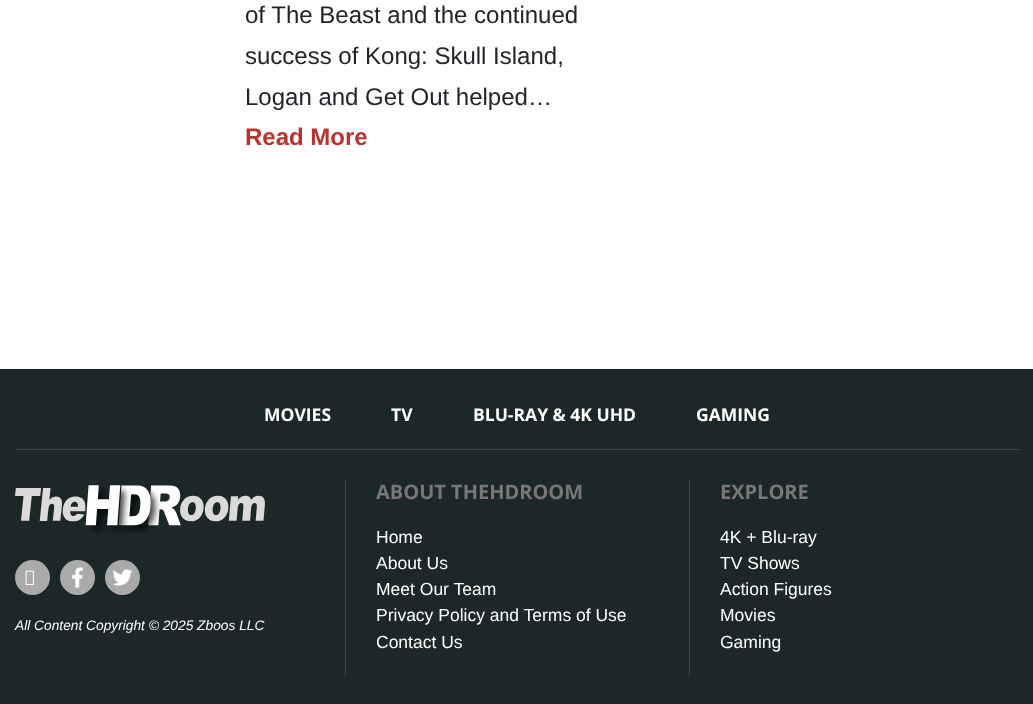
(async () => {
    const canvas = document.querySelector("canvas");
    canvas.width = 1033;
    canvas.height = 704;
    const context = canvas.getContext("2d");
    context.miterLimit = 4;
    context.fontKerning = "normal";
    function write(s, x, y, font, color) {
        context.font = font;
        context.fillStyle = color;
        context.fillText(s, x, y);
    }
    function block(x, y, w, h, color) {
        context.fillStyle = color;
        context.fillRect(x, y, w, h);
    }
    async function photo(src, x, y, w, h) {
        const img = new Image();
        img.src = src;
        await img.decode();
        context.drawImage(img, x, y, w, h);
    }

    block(0, 0, 1033, 704, "rgb(255, 255, 255)");
    write("of The Beast and the continued", 245, 23, "24px Liberation Sans", "rgb(33, 37, 41)");
    write("success of Kong: Skull Island,", 245, 64, "24px Liberation Sans", "rgb(33, 37, 41)");
    write("Logan and Get Out helped…", 245, 105, "24px Liberation Sans", "rgb(33, 37, 41)");
    write("Read More", 245, 145, "bold 24px Liberation Sans", "rgb(185, 51, 46)");
    block(0, 369, 1033, 335, "rgb(28, 39, 40)");
    block(15, 449, 1004, 1, "rgb(68, 68, 68)");
    write("MOVIES", 264, 421, "bold 17.5px Open Sans", "rgb(255, 255, 255)");
    write("TV", 391, 421, "bold 17.5px Open Sans", "rgb(255, 255, 255)");
    write("BLU-RAY & 4K UHD", 473, 421, "bold 17.5px Open Sans", "rgb(255, 255, 255)");
    write("GAMING", 696, 421, "bold 17.5px Open Sans", "rgb(255, 255, 255)");
    await photo("media/1.png", 15, 485, 250, 48);
    context.fillStyle = "rgb(170, 170, 170)";
    context.beginPath();
    context.arc(32.5, 577.5, 17.5, 0, Math.PI * 2);
    context.fill();
    await photo("media/2.png", 25, 570, 9, 15);
    context.beginPath();
    context.arc(77.5, 577.5, 17.5, 0, Math.PI * 2);
    context.fill();
    await photo("media/3.png", 72, 567, 11, 21);
    context.beginPath();
    context.arc(122.5, 577.5, 17.5, 0, Math.PI * 2);
    context.fill();
    await photo("media/4.png", 112, 569, 21, 17);
    write("All Content Copyright © 2025 Zboos LLC", 15, 630, "italic 13.75px Liberation Sans", "rgb(255, 255, 255)");
    block(345, 480, 1, 195, "rgb(68, 68, 68)");
    write("ABOUT THEHDROOM", 376, 499, "bold 20px Open Sans", "rgb(119, 119, 119)");
    write("Home", 376, 543, "17.5px Liberation Sans", "rgb(255, 255, 255)");
    write("About Us", 376, 569, "17.5px Liberation Sans", "rgb(255, 255, 255)");
    write("Meet Our Team", 376, 595, "17.5px Liberation Sans", "rgb(255, 255, 255)");
    write("Privacy Policy and Terms of Use", 376, 621, "17.5px Liberation Sans", "rgb(255, 255, 255)");
    write("Contact Us", 376, 648, "17.5px Liberation Sans", "rgb(255, 255, 255)");
    block(689, 480, 1, 195, "rgb(68, 68, 68)");
    write("EXPLORE", 720, 499, "bold 20px Open Sans", "rgb(119, 119, 119)");
    write("4K + Blu-ray", 720, 543, "17.5px Liberation Sans", "rgb(255, 255, 255)");
    write("TV Shows", 720, 569, "17.5px Liberation Sans", "rgb(255, 255, 255)");
    write("Action Figures", 720, 595, "17.5px Liberation Sans", "rgb(255, 255, 255)");
    write("Movies", 720, 621, "17.5px Liberation Sans", "rgb(255, 255, 255)");
    write("Gaming", 720, 648, "17.5px Liberation Sans", "rgb(255, 255, 255)");
})();
